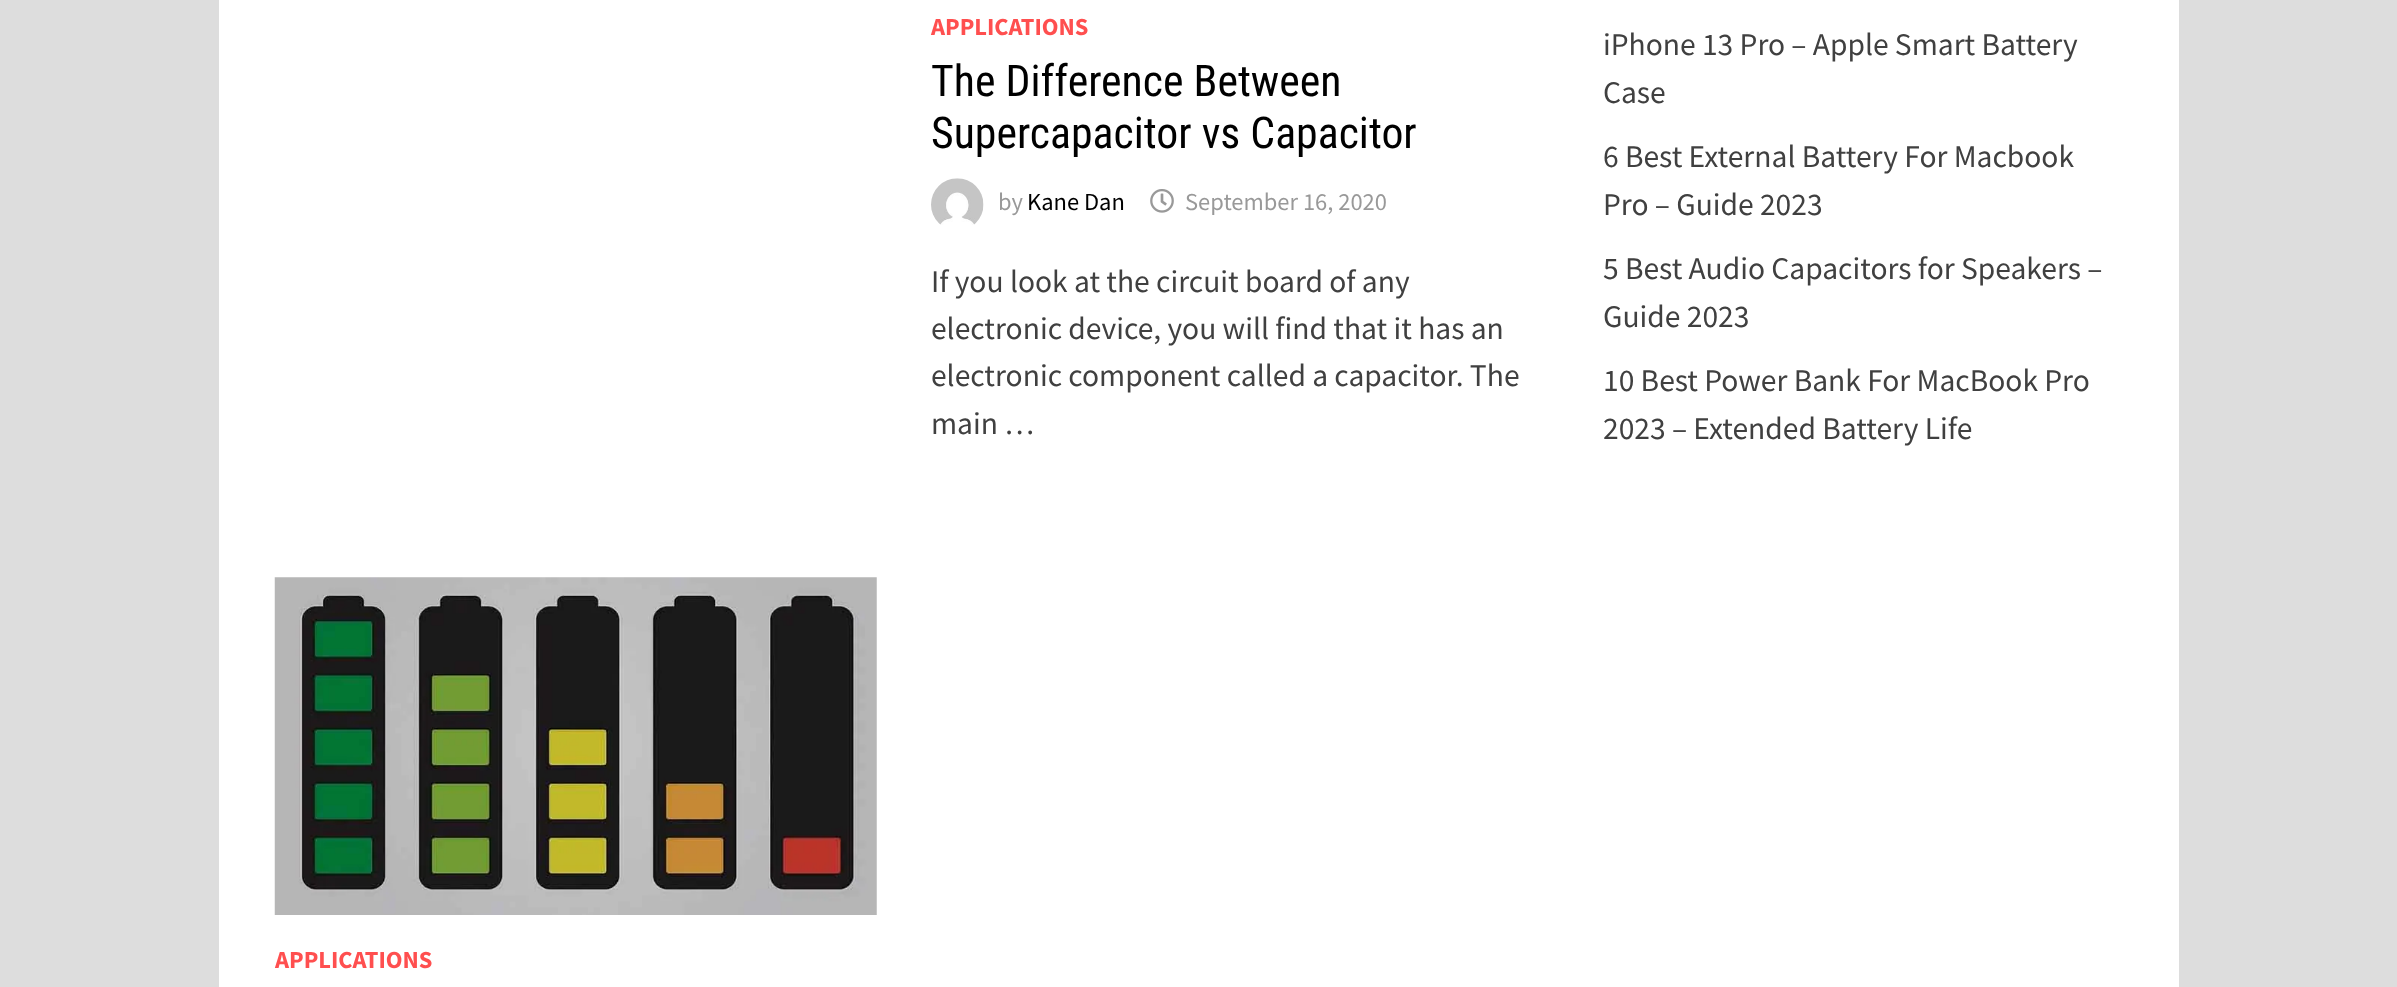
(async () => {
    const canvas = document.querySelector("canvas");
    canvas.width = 2397;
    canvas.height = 987;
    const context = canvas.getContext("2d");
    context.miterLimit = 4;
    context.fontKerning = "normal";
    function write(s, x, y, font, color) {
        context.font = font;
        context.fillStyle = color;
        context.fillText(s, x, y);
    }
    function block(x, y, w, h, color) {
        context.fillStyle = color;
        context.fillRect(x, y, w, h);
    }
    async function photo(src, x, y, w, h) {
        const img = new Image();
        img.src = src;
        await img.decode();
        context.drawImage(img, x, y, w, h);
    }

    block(0, 0, 2397, 987, "rgb(221, 221, 221)");
    block(219, 0, 1960, 987, "rgb(255, 255, 255)");
    write("APPLICATIONS", 931, 35, "bold 24.5px Source Sans Pro", "rgb(255, 79, 79)");
    write("The Difference Between", 931, 96, "43.75px Roboto Condensed", "rgb(0, 0, 0)");
    write("Supercapacitor vs Capacitor", 931, 148, "43.75px Roboto Condensed", "rgb(0, 0, 0)");
    await photo("media/1.png", 931, 178, 53, 47);
    write("by", 998, 210, "24.5px Source Sans Pro", "rgb(153, 153, 153)");
    write("Kane Dan", 1027, 210, "24.5px Source Sans Pro", "rgb(0, 0, 0)");
    await photo("media/2.png", 1150, 189, 24, 24);
    write("September 16, 2020", 1185, 210, "24.5px Source Sans Pro", "rgb(153, 153, 153)");
    write("If you look at the circuit board of any", 931, 292, "31.5px Source Sans Pro", "rgb(64, 64, 64)");
    write("electronic device, you will find that it has an", 931, 339, "31.5px Source Sans Pro", "rgb(64, 64, 64)");
    write("electronic component called a capacitor. The", 931, 386, "31.5px Source Sans Pro", "rgb(64, 64, 64)");
    write("main …", 931, 434, "31.5px Source Sans Pro", "rgb(64, 64, 64)");
    await photo("media/3.png", 274, 577, 603, 338);
    write("APPLICATIONS", 275, 968, "bold 24.5px Source Sans Pro", "rgb(255, 79, 79)");
    write("iPhone 13 Pro – Apple Smart Battery", 1603, 55, "31.5px Source Sans Pro", "rgb(64, 64, 64)");
    write("Case", 1603, 103, "31.5px Source Sans Pro", "rgb(64, 64, 64)");
    write("6 Best External Battery For Macbook", 1603, 167, "31.5px Source Sans Pro", "rgb(64, 64, 64)");
    write("Pro – Guide 2023", 1603, 215, "31.5px Source Sans Pro", "rgb(64, 64, 64)");
    write("5 Best Audio Capacitors for Speakers –", 1603, 279, "31.5px Source Sans Pro", "rgb(64, 64, 64)");
    write("Guide 2023", 1603, 327, "31.5px Source Sans Pro", "rgb(64, 64, 64)");
    write("10 Best Power Bank For MacBook Pro", 1603, 391, "31.5px Source Sans Pro", "rgb(64, 64, 64)");
    write("2023 – Extended Battery Life", 1603, 439, "31.5px Source Sans Pro", "rgb(64, 64, 64)");
})();
